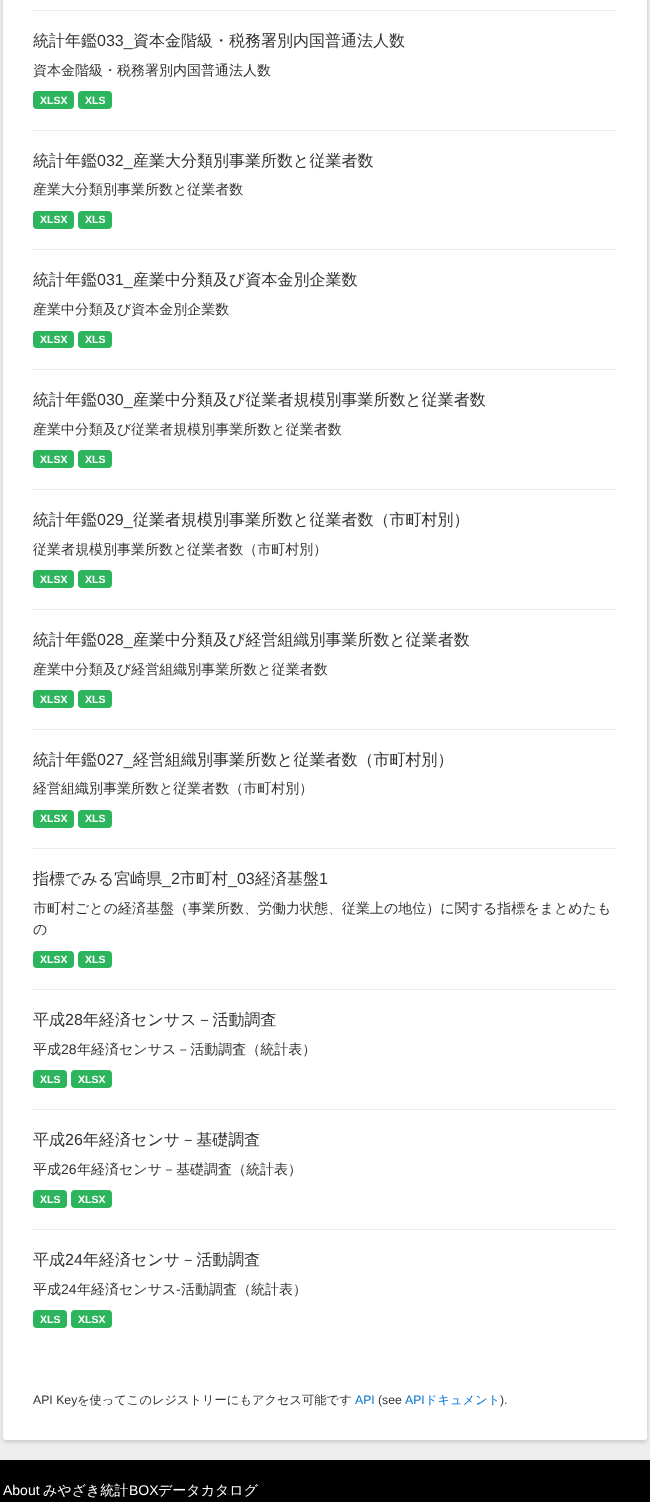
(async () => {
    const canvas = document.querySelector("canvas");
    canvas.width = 650;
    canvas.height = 1502;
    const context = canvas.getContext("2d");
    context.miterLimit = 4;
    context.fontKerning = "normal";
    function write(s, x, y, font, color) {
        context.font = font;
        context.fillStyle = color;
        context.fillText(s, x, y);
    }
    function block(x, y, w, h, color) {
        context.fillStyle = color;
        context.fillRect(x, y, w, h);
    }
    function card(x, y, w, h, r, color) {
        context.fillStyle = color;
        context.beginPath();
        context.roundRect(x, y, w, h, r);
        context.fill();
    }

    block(0, 0, 650, 1502, "rgb(0, 0, 0)");
    block(0, 0, 650, 1460, "rgb(238, 238, 238)");
    context.fillStyle = "rgba(0, 0, 0, 0.16)";
    context.filter = "blur(2px)";
    context.beginPath();
    context.roundRect(3, -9, 644, 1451, 3);
    context.fill();
    context.filter = "none";
    card(3, -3, 644, 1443, 3, "rgb(255, 255, 255)");
    context.beginPath();
    context.moveTo(33, 10.5);
    context.lineTo(617, 10.5);
    context.strokeStyle = "rgb(221, 221, 221)";
    context.setLineDash([1, 1]);
    context.stroke();
    context.beginPath();
    context.moveTo(33, 130.5);
    context.lineTo(617, 130.5);
    context.stroke();
    write("統計年鑑", 33, 46, "500 16px WenQuanYi Zen Hei", "rgb(51, 51, 51)");
    write("033_", 97, 46, "16px Liberation Sans", "rgb(51, 51, 51)");
    write("資本金階級・税務署別内国普通法人数", 133, 46, "500 16px WenQuanYi Zen Hei", "rgb(51, 51, 51)");
    write("資本金階級・税務署別内国普通法人数", 33, 75, "500 14px WenQuanYi Zen Hei", "rgb(51, 51, 51)");
    card(33, 91, 41, 18, 4, "rgb(45, 181, 93)");
    write("XLSX", 40, 104, "bold 10.5px Liberation Sans", "rgb(255, 255, 255)");
    card(78, 91, 34, 18, 4, "rgb(45, 181, 93)");
    write("XLS", 85, 104, "bold 10.5px Liberation Sans", "rgb(255, 255, 255)");
    context.beginPath();
    context.moveTo(33, 249.5);
    context.lineTo(617, 249.5);
    context.stroke();
    write("統計年鑑", 33, 166, "500 16px WenQuanYi Zen Hei", "rgb(51, 51, 51)");
    write("032_", 97, 166, "16px Liberation Sans", "rgb(51, 51, 51)");
    write("産業大分類別事業所数と従業者数", 133, 166, "500 16px WenQuanYi Zen Hei", "rgb(51, 51, 51)");
    write("産業大分類別事業所数と従業者数", 33, 194, "500 14px WenQuanYi Zen Hei", "rgb(51, 51, 51)");
    card(33, 211, 41, 18, 4, "rgb(45, 181, 93)");
    write("XLSX", 40, 223, "bold 10.5px Liberation Sans", "rgb(255, 255, 255)");
    card(78, 211, 34, 18, 4, "rgb(45, 181, 93)");
    write("XLS", 85, 223, "bold 10.5px Liberation Sans", "rgb(255, 255, 255)");
    context.beginPath();
    context.moveTo(33, 369.5);
    context.lineTo(617, 369.5);
    context.stroke();
    write("統計年鑑", 33, 285, "500 16px WenQuanYi Zen Hei", "rgb(51, 51, 51)");
    write("031_", 97, 285, "16px Liberation Sans", "rgb(51, 51, 51)");
    write("産業中分類及び資本金別企業数", 133, 285, "500 16px WenQuanYi Zen Hei", "rgb(51, 51, 51)");
    write("産業中分類及び資本金別企業数", 33, 314, "500 14px WenQuanYi Zen Hei", "rgb(51, 51, 51)");
    card(33, 331, 41, 17, 4, "rgb(45, 181, 93)");
    write("XLSX", 40, 343, "bold 10.5px Liberation Sans", "rgb(255, 255, 255)");
    card(78, 331, 34, 17, 4, "rgb(45, 181, 93)");
    write("XLS", 85, 343, "bold 10.5px Liberation Sans", "rgb(255, 255, 255)");
    context.beginPath();
    context.moveTo(33, 489.5);
    context.lineTo(617, 489.5);
    context.stroke();
    write("統計年鑑", 33, 405, "500 16px WenQuanYi Zen Hei", "rgb(51, 51, 51)");
    write("030_", 97, 405, "16px Liberation Sans", "rgb(51, 51, 51)");
    write("産業中分類及び従業者規模別事業所数と従業者数", 133, 405, "500 16px WenQuanYi Zen Hei", "rgb(51, 51, 51)");
    write("産業中分類及び従業者規模別事業所数と従業者数", 33, 434, "500 14px WenQuanYi Zen Hei", "rgb(51, 51, 51)");
    card(33, 450, 41, 18, 4, "rgb(45, 181, 93)");
    write("XLSX", 40, 463, "bold 10.5px Liberation Sans", "rgb(255, 255, 255)");
    card(78, 450, 34, 18, 4, "rgb(45, 181, 93)");
    write("XLS", 85, 463, "bold 10.5px Liberation Sans", "rgb(255, 255, 255)");
    context.beginPath();
    context.moveTo(33, 609.5);
    context.lineTo(617, 609.5);
    context.stroke();
    write("統計年鑑", 33, 525, "500 16px WenQuanYi Zen Hei", "rgb(51, 51, 51)");
    write("029_", 97, 525, "16px Liberation Sans", "rgb(51, 51, 51)");
    write("従業者規模別事業所数と従業者数（市町村別）", 133, 525, "500 16px WenQuanYi Zen Hei", "rgb(51, 51, 51)");
    write("従業者規模別事業所数と従業者数（市町村別）", 33, 554, "500 14px WenQuanYi Zen Hei", "rgb(51, 51, 51)");
    card(33, 570, 41, 18, 4, "rgb(45, 181, 93)");
    write("XLSX", 40, 583, "bold 10.5px Liberation Sans", "rgb(255, 255, 255)");
    card(78, 570, 34, 18, 4, "rgb(45, 181, 93)");
    write("XLS", 85, 583, "bold 10.5px Liberation Sans", "rgb(255, 255, 255)");
    context.beginPath();
    context.moveTo(33, 729.5);
    context.lineTo(617, 729.5);
    context.stroke();
    write("統計年鑑", 33, 645, "500 16px WenQuanYi Zen Hei", "rgb(51, 51, 51)");
    write("028_", 97, 645, "16px Liberation Sans", "rgb(51, 51, 51)");
    write("産業中分類及び経営組織別事業所数と従業者数", 133, 645, "500 16px WenQuanYi Zen Hei", "rgb(51, 51, 51)");
    write("産業中分類及び経営組織別事業所数と従業者数", 33, 674, "500 14px WenQuanYi Zen Hei", "rgb(51, 51, 51)");
    card(33, 690, 41, 18, 4, "rgb(45, 181, 93)");
    write("XLSX", 40, 703, "bold 10.5px Liberation Sans", "rgb(255, 255, 255)");
    card(78, 690, 34, 18, 4, "rgb(45, 181, 93)");
    write("XLS", 85, 703, "bold 10.5px Liberation Sans", "rgb(255, 255, 255)");
    context.beginPath();
    context.moveTo(33, 848.5);
    context.lineTo(617, 848.5);
    context.stroke();
    write("統計年鑑", 33, 765, "500 16px WenQuanYi Zen Hei", "rgb(51, 51, 51)");
    write("027_", 97, 765, "16px Liberation Sans", "rgb(51, 51, 51)");
    write("経営組織別事業所数と従業者数（市町村別）", 133, 765, "500 16px WenQuanYi Zen Hei", "rgb(51, 51, 51)");
    write("経営組織別事業所数と従業者数（市町村別）", 33, 793, "500 14px WenQuanYi Zen Hei", "rgb(51, 51, 51)");
    card(33, 810, 41, 18, 4, "rgb(45, 181, 93)");
    write("XLSX", 40, 822, "bold 10.5px Liberation Sans", "rgb(255, 255, 255)");
    card(78, 810, 34, 18, 4, "rgb(45, 181, 93)");
    write("XLS", 85, 822, "bold 10.5px Liberation Sans", "rgb(255, 255, 255)");
    context.beginPath();
    context.moveTo(33, 989.5);
    context.lineTo(617, 989.5);
    context.stroke();
    write("指標でみる宮崎県", 33, 884, "500 16px WenQuanYi Zen Hei", "rgb(51, 51, 51)");
    write("_2", 162, 884, "16px Liberation Sans", "rgb(51, 51, 51)");
    write("市町村", 180, 884, "500 16px WenQuanYi Zen Hei", "rgb(51, 51, 51)");
    write("_03", 228, 884, "16px Liberation Sans", "rgb(51, 51, 51)");
    write("経済基盤", 255, 884, "500 16px WenQuanYi Zen Hei", "rgb(51, 51, 51)");
    write("1", 319, 884, "16px Liberation Sans", "rgb(51, 51, 51)");
    write("市町村ごとの経済基盤（事業所数、労働力状態、従業上の地位）に関する指標をまとめたも", 33, 913, "500 14px WenQuanYi Zen Hei", "rgb(51, 51, 51)");
    write("の", 33, 934, "500 14px WenQuanYi Zen Hei", "rgb(51, 51, 51)");
    card(33, 951, 41, 17, 4, "rgb(45, 181, 93)");
    write("XLSX", 40, 963, "bold 10.5px Liberation Sans", "rgb(255, 255, 255)");
    card(78, 951, 34, 17, 4, "rgb(45, 181, 93)");
    write("XLS", 85, 963, "bold 10.5px Liberation Sans", "rgb(255, 255, 255)");
    context.beginPath();
    context.moveTo(33, 1109.5);
    context.lineTo(617, 1109.5);
    context.stroke();
    write("平成", 33, 1025, "500 16px WenQuanYi Zen Hei", "rgb(51, 51, 51)");
    write("28", 65, 1025, "16px Liberation Sans", "rgb(51, 51, 51)");
    write("年経済センサス－活動調査", 83, 1025, "500 16px WenQuanYi Zen Hei", "rgb(51, 51, 51)");
    write("平成", 33, 1054, "500 14px WenQuanYi Zen Hei", "rgb(51, 51, 51)");
    write("28", 61, 1054, "14px Liberation Sans", "rgb(51, 51, 51)");
    write("年経済センサス－活動調査（統計表）", 77, 1054, "500 14px WenQuanYi Zen Hei", "rgb(51, 51, 51)");
    card(33, 1070, 34, 18, 4, "rgb(45, 181, 93)");
    write("XLS", 40, 1083, "bold 10.5px Liberation Sans", "rgb(255, 255, 255)");
    card(71, 1070, 41, 18, 4, "rgb(45, 181, 93)");
    write("XLSX", 78, 1083, "bold 10.5px Liberation Sans", "rgb(255, 255, 255)");
    context.beginPath();
    context.moveTo(33, 1229.5);
    context.lineTo(617, 1229.5);
    context.stroke();
    write("平成", 33, 1145, "500 16px WenQuanYi Zen Hei", "rgb(51, 51, 51)");
    write("26", 65, 1145, "16px Liberation Sans", "rgb(51, 51, 51)");
    write("年経済センサ－基礎調査", 83, 1145, "500 16px WenQuanYi Zen Hei", "rgb(51, 51, 51)");
    write("平成", 33, 1174, "500 14px WenQuanYi Zen Hei", "rgb(51, 51, 51)");
    write("26", 61, 1174, "14px Liberation Sans", "rgb(51, 51, 51)");
    write("年経済センサ－基礎調査（統計表）", 77, 1174, "500 14px WenQuanYi Zen Hei", "rgb(51, 51, 51)");
    card(33, 1190, 34, 18, 4, "rgb(45, 181, 93)");
    write("XLS", 40, 1203, "bold 10.5px Liberation Sans", "rgb(255, 255, 255)");
    card(71, 1190, 41, 18, 4, "rgb(45, 181, 93)");
    write("XLSX", 78, 1203, "bold 10.5px Liberation Sans", "rgb(255, 255, 255)");
    write("平成", 33, 1265, "500 16px WenQuanYi Zen Hei", "rgb(51, 51, 51)");
    write("24", 65, 1265, "16px Liberation Sans", "rgb(51, 51, 51)");
    write("年経済センサ－活動調査", 83, 1265, "500 16px WenQuanYi Zen Hei", "rgb(51, 51, 51)");
    write("平成", 33, 1294, "500 14px WenQuanYi Zen Hei", "rgb(51, 51, 51)");
    write("24", 61, 1294, "14px Liberation Sans", "rgb(51, 51, 51)");
    write("年経済センサス", 77, 1294, "500 14px WenQuanYi Zen Hei", "rgb(51, 51, 51)");
    write("-", 176, 1294, "14px Liberation Sans", "rgb(51, 51, 51)");
    write("活動調査（統計表）", 181, 1294, "500 14px WenQuanYi Zen Hei", "rgb(51, 51, 51)");
    card(33, 1310, 34, 18, 4, "rgb(45, 181, 93)");
    write("XLS", 40, 1323, "bold 10.5px Liberation Sans", "rgb(255, 255, 255)");
    card(71, 1310, 41, 18, 4, "rgb(45, 181, 93)");
    write("XLSX", 78, 1323, "bold 10.5px Liberation Sans", "rgb(255, 255, 255)");
    write("API Key", 33, 1404, "12.25px Liberation Sans", "rgb(51, 51, 51)");
    write("を使ってこのレジストリーにもアクセス可能です", 77, 1404, "500 12.25px WenQuanYi Zen Hei", "rgb(51, 51, 51)");
    write("API", 355, 1404, "12.25px Liberation Sans", "rgb(0, 114, 213)");
    write("(see", 378, 1404, "12.25px Liberation Sans", "rgb(51, 51, 51)");
    write("API", 405, 1404, "12.25px Liberation Sans", "rgb(0, 114, 213)");
    write("ドキュメント", 425, 1404, "500 12.25px WenQuanYi Zen Hei", "rgb(0, 114, 213)");
    write(").", 500, 1404, "12.25px Liberation Sans", "rgb(51, 51, 51)");
    write("About", 3, 1495, "14px Liberation Sans", "rgb(255, 255, 255)");
    write("みやざき統計", 43, 1495, "500 14px WenQuanYi Zen Hei", "rgb(255, 255, 255)");
    write("BOX", 129, 1495, "14px Liberation Sans", "rgb(255, 255, 255)");
    write("データカタログ", 158, 1495, "500 14px WenQuanYi Zen Hei", "rgb(255, 255, 255)");
})();
